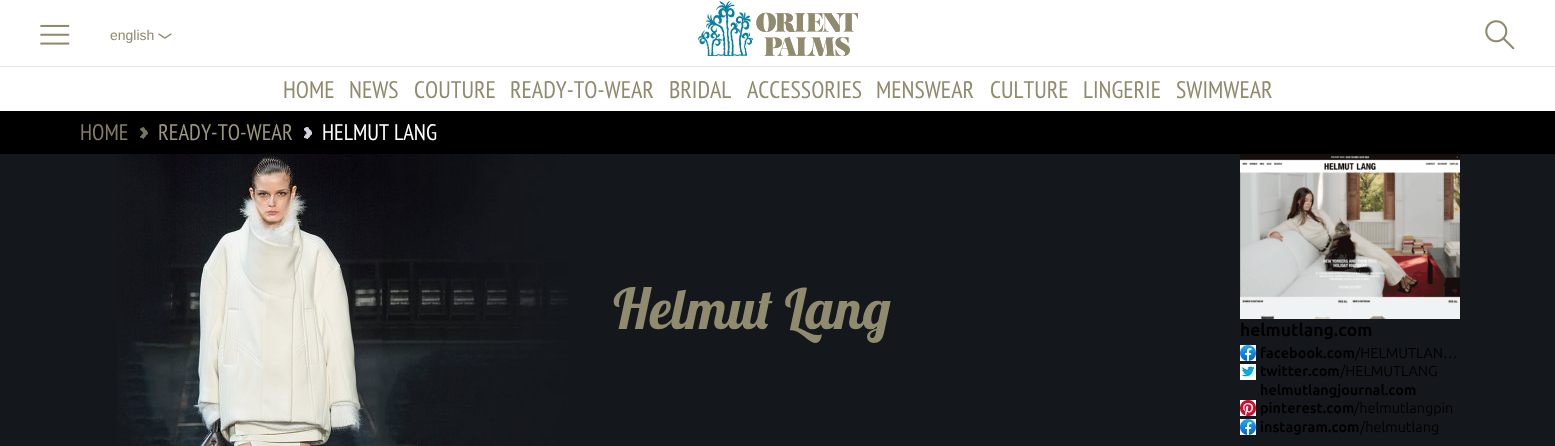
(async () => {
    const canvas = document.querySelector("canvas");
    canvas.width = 1555;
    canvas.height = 446;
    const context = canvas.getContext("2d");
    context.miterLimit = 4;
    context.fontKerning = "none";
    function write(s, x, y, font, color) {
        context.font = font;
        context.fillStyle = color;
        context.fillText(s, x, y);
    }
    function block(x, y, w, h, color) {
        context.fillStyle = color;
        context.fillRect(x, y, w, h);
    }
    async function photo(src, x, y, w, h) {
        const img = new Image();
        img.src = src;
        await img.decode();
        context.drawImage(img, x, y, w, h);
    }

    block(0, 0, 1555, 446, "rgb(255, 255, 255)");
    block(0, 66, 1555, 1, "rgb(228, 228, 228)");
    await photo("media/1.png", 40, 24, 30, 21);
    write("english", 110, 40, "14px Liberation Sans", "rgb(144, 139, 110)");
    await photo("media/2.png", 158, 33, 14, 6);
    await photo("media/3.png", 698, 1, 160, 55);
    await photo("media/4.png", 1485, 20, 30, 30);
    write("HOME", 283, 98, "24px PT Sans Narrow", "rgb(144, 139, 110)");
    write("NEWS", 349, 98, "24px PT Sans Narrow", "rgb(144, 139, 110)");
    write("COUTURE", 414, 98, "24px PT Sans Narrow", "rgb(144, 139, 110)");
    write("READY-TO-WEAR", 510, 98, "24px PT Sans Narrow", "rgb(144, 139, 110)");
    write("BRIDAL", 669, 98, "24px PT Sans Narrow", "rgb(144, 139, 110)");
    write("ACCESSORIES", 747, 98, "24px PT Sans Narrow", "rgb(144, 139, 110)");
    write("MENSWEAR", 876, 98, "24px PT Sans Narrow", "rgb(144, 139, 110)");
    write("CULTURE", 990, 98, "24px PT Sans Narrow", "rgb(144, 139, 110)");
    write("LINGERIE", 1083, 98, "24px PT Sans Narrow", "rgb(144, 139, 110)");
    write("SWIMWEAR", 1176, 98, "24px PT Sans Narrow", "rgb(144, 139, 110)");
    block(0, 111, 1555, 43, "rgb(0, 0, 0)");
    write("HOME", 80, 140, "22.5px PT Sans Narrow", "rgb(130, 125, 99)");
    await photo("media/5.png", 140, 127, 8, 12);
    write("READY-TO-WEAR", 158, 140, "22.5px PT Sans Narrow", "rgb(155, 151, 124)");
    await photo("media/6.png", 304, 127, 8, 12);
    write("HELMUT LANG", 322, 140, "22.5px PT Sans Narrow", "rgb(255, 255, 255)");
    block(0, 154, 1555, 292, "rgb(20, 23, 28)");
    await photo("media/7.png", 117, 154, 451, 292);
    write("Helmut Lang", 613, 329, "56px 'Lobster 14'", "rgb(144, 139, 110)");
    await photo("media/8.png", 1240, 154, 220, 165);
    write("helmutlang.com", 1240, 336, "bold 17.5px Ubuntu", "rgb(0, 0, 0)");
    await photo("media/9.png", 1240, 345, 16, 16);
    write("facebook.com", 1260, 358, "bold 14.4px Ubuntu", "rgb(0, 0, 0)");
    write("/HELMUTLAN…", 1355, 358, "14.4px Ubuntu", "rgb(0, 0, 0)");
    await photo("media/10.png", 1240, 364, 16, 16);
    write("twitter.com", 1260, 376, "bold 14.4px Ubuntu", "rgb(0, 0, 0)");
    write("/HELMUTLANG", 1340, 376, "14.4px Ubuntu", "rgb(0, 0, 0)");
    write("helmutlangjournal.com", 1260, 395, "bold 14.4px Ubuntu", "rgb(0, 0, 0)");
    await photo("media/11.png", 1240, 400, 16, 16);
    write("pinterest.com", 1260, 413, "bold 14.4px Ubuntu", "rgb(0, 0, 0)");
    write("/helmutlangpin", 1354, 413, "14.4px Ubuntu", "rgb(0, 0, 0)");
    await photo("media/9.png", 1240, 419, 16, 16);
    write("instagram.com", 1260, 432, "bold 14.4px Ubuntu", "rgb(0, 0, 0)");
    write("/helmutlang", 1360, 432, "14.4px Ubuntu", "rgb(0, 0, 0)");
})();
